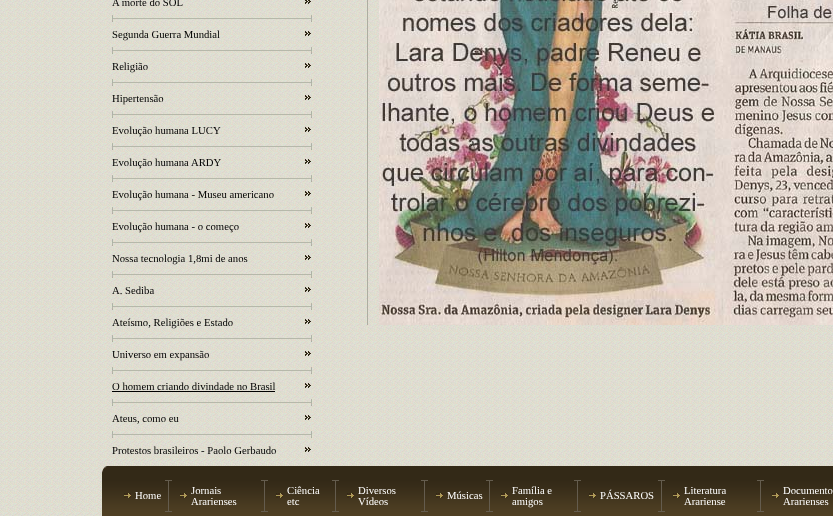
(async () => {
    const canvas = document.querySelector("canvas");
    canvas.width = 833;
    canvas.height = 516;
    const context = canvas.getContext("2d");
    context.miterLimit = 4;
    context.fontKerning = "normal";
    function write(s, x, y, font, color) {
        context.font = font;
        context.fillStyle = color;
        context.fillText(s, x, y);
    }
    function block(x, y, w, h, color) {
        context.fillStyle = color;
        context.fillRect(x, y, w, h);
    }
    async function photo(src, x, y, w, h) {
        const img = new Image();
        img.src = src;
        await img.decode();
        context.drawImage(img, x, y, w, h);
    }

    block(0, 0, 833, 516, "rgb(255, 255, 255)");
    await photo("media/1.png", 0, 0, 833, 516);
    write("A morte do SOL", 112, 6, "10.7px Liberation Serif", "rgb(0, 0, 0)");
    await photo("media/2.png", 305, 0, 6, 4);
    await photo("media/3.png", 112, 15, 1, 7);
    block(113, 18, 198, 1, "rgb(182, 184, 170)");
    await photo("media/3.png", 311, 15, 1, 7);
    write("Segunda Guerra Mundial", 112, 38, "10.7px Liberation Serif", "rgb(0, 0, 0)");
    await photo("media/4.png", 305, 31, 6, 5);
    await photo("media/3.png", 112, 47, 1, 7);
    block(113, 50, 198, 1, "rgb(182, 184, 170)");
    await photo("media/3.png", 311, 47, 1, 7);
    write("Religião", 112, 70, "10.7px Liberation Serif", "rgb(0, 0, 0)");
    await photo("media/4.png", 305, 63, 6, 5);
    await photo("media/3.png", 112, 79, 1, 7);
    block(113, 82, 198, 1, "rgb(182, 184, 170)");
    await photo("media/3.png", 311, 79, 1, 7);
    write("Hipertensão", 112, 102, "10.7px Liberation Serif", "rgb(0, 0, 0)");
    await photo("media/4.png", 305, 95, 6, 5);
    await photo("media/3.png", 112, 111, 1, 7);
    block(113, 114, 198, 1, "rgb(182, 184, 170)");
    await photo("media/3.png", 311, 111, 1, 7);
    write("Evolução humana LUCY", 112, 134, "10.7px Liberation Serif", "rgb(0, 0, 0)");
    await photo("media/4.png", 305, 127, 6, 5);
    await photo("media/3.png", 112, 143, 1, 7);
    block(113, 146, 198, 1, "rgb(182, 184, 170)");
    await photo("media/3.png", 311, 143, 1, 7);
    write("Evolução humana ARDY", 112, 166, "10.7px Liberation Serif", "rgb(0, 0, 0)");
    await photo("media/4.png", 305, 159, 6, 5);
    await photo("media/3.png", 112, 175, 1, 7);
    block(113, 178, 198, 1, "rgb(182, 184, 170)");
    await photo("media/3.png", 311, 175, 1, 7);
    write("Evolução humana - Museu americano", 112, 198, "10.7px Liberation Serif", "rgb(0, 0, 0)");
    await photo("media/4.png", 305, 191, 6, 5);
    await photo("media/3.png", 112, 207, 1, 7);
    block(113, 210, 198, 1, "rgb(182, 184, 170)");
    await photo("media/3.png", 311, 207, 1, 7);
    write("Evolução humana - o começo", 112, 230, "10.7px Liberation Serif", "rgb(0, 0, 0)");
    await photo("media/4.png", 305, 223, 6, 5);
    await photo("media/3.png", 112, 239, 1, 7);
    block(113, 242, 198, 1, "rgb(182, 184, 170)");
    await photo("media/3.png", 311, 239, 1, 7);
    write("Nossa tecnologia 1,8mi de anos", 112, 262, "10.7px Liberation Serif", "rgb(0, 0, 0)");
    await photo("media/4.png", 305, 255, 6, 5);
    await photo("media/3.png", 112, 271, 1, 7);
    block(113, 274, 198, 1, "rgb(182, 184, 170)");
    await photo("media/3.png", 311, 271, 1, 7);
    write("A. Sediba", 112, 294, "10.7px Liberation Serif", "rgb(0, 0, 0)");
    await photo("media/4.png", 305, 287, 6, 5);
    await photo("media/3.png", 112, 303, 1, 7);
    block(113, 306, 198, 1, "rgb(182, 184, 170)");
    await photo("media/3.png", 311, 303, 1, 7);
    write("Ateísmo, Religiões e Estado", 112, 326, "10.7px Liberation Serif", "rgb(0, 0, 0)");
    await photo("media/4.png", 305, 319, 6, 5);
    await photo("media/3.png", 112, 335, 1, 7);
    block(113, 338, 198, 1, "rgb(182, 184, 170)");
    await photo("media/3.png", 311, 335, 1, 7);
    write("Universo em expansão", 112, 358, "10.7px Liberation Serif", "rgb(0, 0, 0)");
    await photo("media/4.png", 305, 351, 6, 5);
    await photo("media/3.png", 112, 367, 1, 7);
    block(113, 370, 198, 1, "rgb(182, 184, 170)");
    await photo("media/3.png", 311, 367, 1, 7);
    write("O homem criando divindade no Brasil", 112, 390, "10.7px Liberation Serif", "rgb(0, 0, 0)");
    block(112, 391, 163, 1, "rgb(0, 0, 0)");
    await photo("media/4.png", 305, 383, 6, 5);
    await photo("media/3.png", 112, 399, 1, 7);
    block(113, 402, 198, 1, "rgb(182, 184, 170)");
    await photo("media/3.png", 311, 399, 1, 7);
    write("Ateus, como eu", 112, 422, "10.7px Liberation Serif", "rgb(0, 0, 0)");
    await photo("media/4.png", 305, 415, 6, 5);
    await photo("media/3.png", 112, 431, 1, 7);
    block(113, 434, 198, 1, "rgb(182, 184, 170)");
    await photo("media/3.png", 311, 431, 1, 7);
    write("Protestos brasileiros - Paolo Gerbaudo", 112, 454, "10.7px Liberation Serif", "rgb(0, 0, 0)");
    await photo("media/4.png", 305, 447, 6, 5);
    block(367, 0, 1, 325, "rgb(173, 173, 161)");
    await photo("media/5.png", 379, 0, 454, 325);
    await photo("media/6.png", 102, 466, 14, 50);
    await photo("media/7.png", 116, 466, 717, 50);
    await photo("media/8.png", 124, 493, 7, 5);
    write("Home", 135, 499, "10.7px Liberation Serif", "rgb(255, 255, 255)");
    block(165, 480, 7, 1, "rgb(100, 92, 78)");
    block(168, 481, 1, 30, "rgb(100, 92, 78)");
    block(165, 511, 7, 1, "rgb(100, 92, 78)");
    await photo("media/8.png", 180, 493, 7, 5);
    write("Jornais", 191, 494, "10.7px Liberation Serif", "rgb(255, 255, 255)");
    write("Ararienses", 191, 505, "10.7px Liberation Serif", "rgb(255, 255, 255)");
    block(261, 480, 7, 1, "rgb(100, 92, 78)");
    block(264, 481, 1, 30, "rgb(100, 92, 78)");
    block(261, 511, 7, 1, "rgb(100, 92, 78)");
    await photo("media/8.png", 276, 493, 7, 5);
    write("Ciência", 287, 494, "10.7px Liberation Serif", "rgb(255, 255, 255)");
    write("etc", 287, 505, "10.7px Liberation Serif", "rgb(255, 255, 255)");
    block(332, 480, 7, 1, "rgb(100, 92, 78)");
    block(335, 481, 1, 30, "rgb(100, 92, 78)");
    block(332, 511, 7, 1, "rgb(100, 92, 78)");
    await photo("media/8.png", 347, 493, 7, 5);
    write("Diversos", 358, 494, "10.7px Liberation Serif", "rgb(255, 255, 255)");
    write("Vídeos", 358, 505, "10.7px Liberation Serif", "rgb(255, 255, 255)");
    block(421, 480, 7, 1, "rgb(100, 92, 78)");
    block(424, 481, 1, 30, "rgb(100, 92, 78)");
    block(421, 511, 7, 1, "rgb(100, 92, 78)");
    await photo("media/8.png", 436, 493, 7, 5);
    write("Músicas", 447, 499, "10.7px Liberation Serif", "rgb(255, 255, 255)");
    block(486, 480, 7, 1, "rgb(100, 92, 78)");
    block(489, 481, 1, 30, "rgb(100, 92, 78)");
    block(486, 511, 7, 1, "rgb(100, 92, 78)");
    await photo("media/8.png", 501, 493, 7, 5);
    write("Família e", 512, 494, "10.7px Liberation Serif", "rgb(255, 255, 255)");
    write("amigos", 512, 505, "10.7px Liberation Serif", "rgb(255, 255, 255)");
    block(574, 480, 7, 1, "rgb(100, 92, 78)");
    block(577, 481, 1, 30, "rgb(100, 92, 78)");
    block(574, 511, 7, 1, "rgb(100, 92, 78)");
    await photo("media/8.png", 589, 493, 7, 5);
    write("PÁSSAROS", 600, 499, "10.7px Liberation Serif", "rgb(255, 255, 255)");
    block(658, 480, 7, 1, "rgb(100, 92, 78)");
    block(661, 481, 1, 30, "rgb(100, 92, 78)");
    block(658, 511, 7, 1, "rgb(100, 92, 78)");
    await photo("media/8.png", 673, 493, 7, 5);
    write("Literatura", 684, 494, "10.7px Liberation Serif", "rgb(255, 255, 255)");
    write("Arariense", 684, 505, "10.7px Liberation Serif", "rgb(255, 255, 255)");
    block(757, 480, 7, 1, "rgb(100, 92, 78)");
    block(760, 481, 1, 30, "rgb(100, 92, 78)");
    block(757, 511, 7, 1, "rgb(100, 92, 78)");
    await photo("media/8.png", 772, 493, 7, 5);
    write("Documento", 783, 494, "10.7px Liberation Serif", "rgb(255, 255, 255)");
    write("Ararienses", 783, 505, "10.7px Liberation Serif", "rgb(255, 255, 255)");
})();
